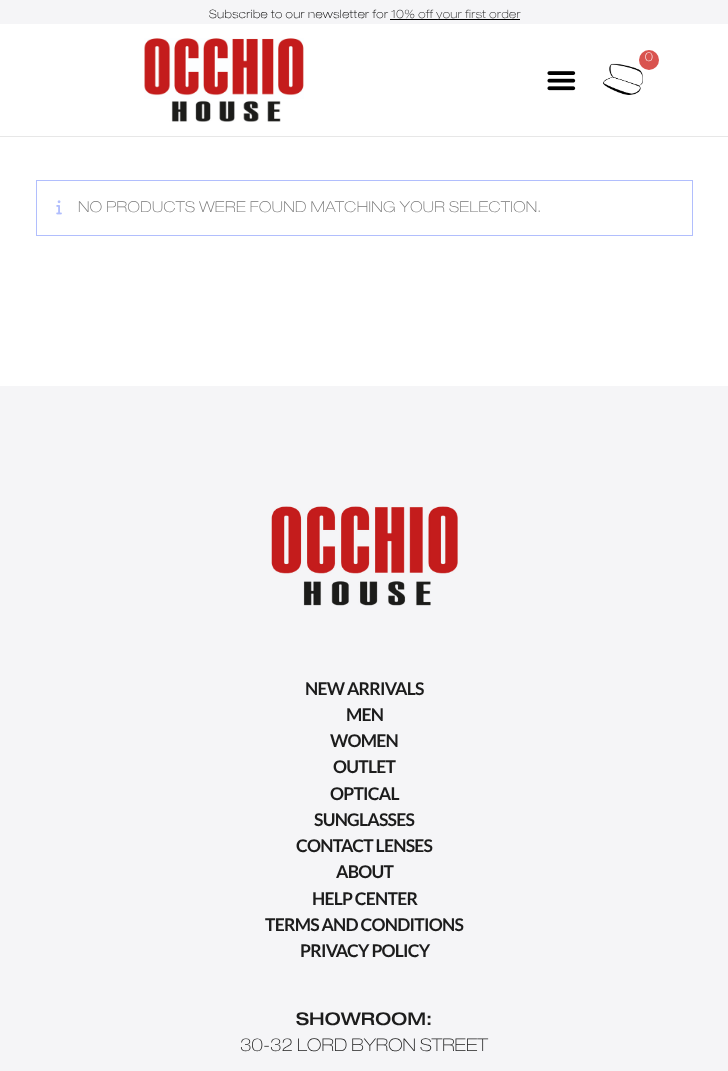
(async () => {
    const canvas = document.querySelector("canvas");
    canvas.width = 728;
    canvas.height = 1071;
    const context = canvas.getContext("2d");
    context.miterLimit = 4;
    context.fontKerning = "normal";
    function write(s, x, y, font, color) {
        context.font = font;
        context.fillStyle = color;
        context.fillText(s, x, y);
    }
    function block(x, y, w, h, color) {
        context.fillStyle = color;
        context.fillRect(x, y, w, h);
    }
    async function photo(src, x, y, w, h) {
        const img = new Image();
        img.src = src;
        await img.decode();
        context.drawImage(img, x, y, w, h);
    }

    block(0, 0, 728, 1071, "rgb(255, 255, 255)");
    block(0, 0, 728, 24, "rgb(245, 245, 247)");
    context.letterSpacing = "0.4px";
    write("Subscribe to our newsletter for", 209, 18, "200 11.5px Helvetica Neue", "rgb(0, 0, 0)");
    block(390, 19, 130, 1, "rgb(0, 0, 0)");
    write("10% off your first order", 391, 18, "200 11.5px Helvetica Neue", "rgb(28, 28, 28)");
    block(0, 136, 728, 1, "rgb(231, 231, 231)");
    await photo("media/1.png", 144, 38, 160, 84);
    await photo("media/2.png", 603, 63, 40, 32);
    context.fillStyle = "rgb(217, 83, 79)";
    context.beginPath();
    context.arc(649, 60, 10, 0, Math.PI * 2);
    context.fill();
    write("0", 645, 61, "200 12px Helvetica Neue", "rgb(255, 255, 255)");
    await photo("media/3.png", 547, 71, 29, 20);
    context.strokeStyle = "rgb(177, 190, 253)";
    context.strokeRect(36.5, 180.5, 656, 55);
    await photo("media/4.png", 56, 200, 6, 15);
    write("NO PRODUCTS WERE FOUND MATCHING YOUR SELECTION.", 78, 212, "200 15px Helvetica Neue", "rgb(119, 119, 119)");
    block(0, 386, 728, 685, "rgb(245, 245, 247)");
    await photo("media/5.png", 271, 506, 187, 100);
    context.letterSpacing = "-0.75px";
    write("NEW ARRIVALS", 305, 695, "bold 17.5px Lato", "rgb(28, 28, 28)");
    write("MEN", 346, 721, "bold 17.5px Lato", "rgb(28, 28, 28)");
    write("WOMEN", 330, 747, "bold 17.5px Lato", "rgb(28, 28, 28)");
    write("OUTLET", 333, 773, "bold 17.5px Lato", "rgb(28, 28, 28)");
    write("OPTICAL", 330, 800, "bold 17.5px Lato", "rgb(28, 28, 28)");
    write("SUNGLASSES", 314, 826, "bold 17.5px Lato", "rgb(28, 28, 28)");
    write("CONTACT LENSES", 296, 852, "bold 17.5px Lato", "rgb(28, 28, 28)");
    write("ABOUT", 336, 878, "bold 17.5px Lato", "rgb(28, 28, 28)");
    write("HELP CENTER", 312, 905, "bold 17.5px Lato", "rgb(28, 28, 28)");
    write("TERMS AND CONDITIONS", 265, 931, "bold 17.5px Lato", "rgb(28, 28, 28)");
    write("PRIVACY POLICY", 300, 957, "bold 17.5px Lato", "rgb(28, 28, 28)");
    context.letterSpacing = "0.1px";
    write("SHOWROOM:", 296, 1025, "500 17.5px Helvetica Neue", "rgb(28, 28, 28)");
    write("30-32 LORD BYRON STREET", 240, 1051, "200 17.5px Helvetica Neue", "rgb(28, 28, 28)");
})();
